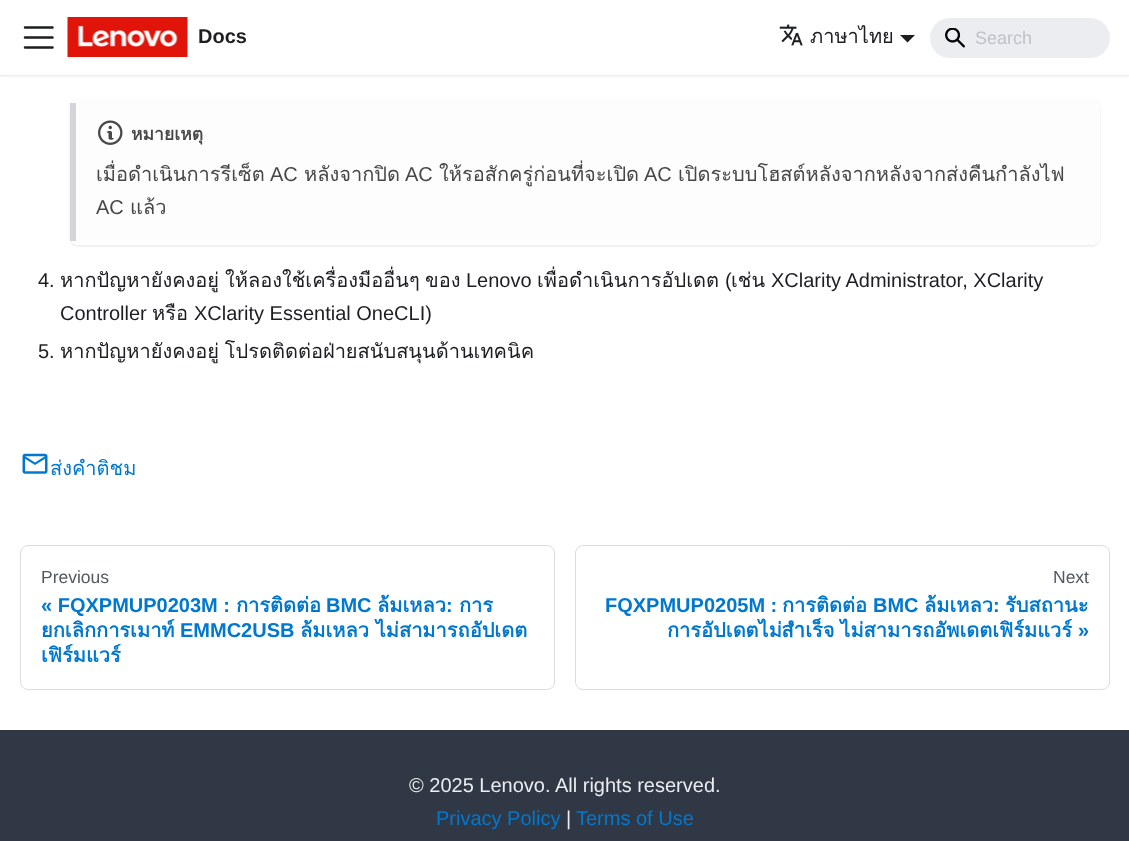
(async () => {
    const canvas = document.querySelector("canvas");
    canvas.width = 1129;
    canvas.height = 841;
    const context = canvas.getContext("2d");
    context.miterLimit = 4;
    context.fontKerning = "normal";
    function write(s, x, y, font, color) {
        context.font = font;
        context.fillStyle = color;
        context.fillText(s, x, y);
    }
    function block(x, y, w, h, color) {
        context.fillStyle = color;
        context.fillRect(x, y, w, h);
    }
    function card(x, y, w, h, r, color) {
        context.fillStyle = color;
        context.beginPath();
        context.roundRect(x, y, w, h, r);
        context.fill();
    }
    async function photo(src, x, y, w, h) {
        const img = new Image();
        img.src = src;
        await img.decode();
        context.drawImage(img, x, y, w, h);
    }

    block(0, 0, 1129, 841, "rgb(255, 255, 255)");
    context.fillStyle = "rgba(0, 0, 0, 0.1)";
    context.filter = "blur(1px)";
    context.beginPath();
    context.rect(0, 1, 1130, 75);
    context.fill();
    context.filter = "none";
    block(0, 0, 1129, 75, "rgb(255, 255, 255)");
    context.beginPath();
    context.moveTo(25, 27.5);
    context.lineTo(52.5, 27.5);
    context.moveTo(25, 37.5);
    context.lineTo(52.5, 37.5);
    context.moveTo(25, 47.5);
    context.lineTo(52.5, 47.5);
    context.strokeStyle = "rgb(28, 30, 33)";
    context.lineWidth = 2.5;
    context.lineCap = "round";
    context.stroke();
    await photo("media/1.png", 67, 17, 121, 40);
    write("Docs", 198, 43, "bold 20px Liberation Sans", "rgb(28, 30, 33)");
    await photo("media/2.png", 779, 24, 24, 22);
    write("ภาษาไทย", 810, 43, "20px Loma", "rgb(28, 30, 33)");
    context.beginPath();
    context.moveTo(900, 35);
    context.lineTo(915, 35);
    context.lineTo(907.5, 42.5);
    context.closePath();
    context.fill();
    card(930, 18, 180, 40, 20, "rgb(235, 237, 240)");
    await photo("media/3.png", 945, 28, 20, 20);
    write("Search", 975, 44, "18px Liberation Sans", "rgb(190, 195, 201)");
    context.save();
    context.beginPath();
    context.moveTo(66, 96);
    context.lineTo(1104, 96);
    context.lineTo(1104, 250);
    context.lineTo(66, 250);
    context.closePath();
    context.moveTo(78, 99);
    context.lineTo(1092, 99);
    context.bezierCurveTo(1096.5, 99, 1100, 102.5, 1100, 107);
    context.lineTo(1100, 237);
    context.bezierCurveTo(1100, 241.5, 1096.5, 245, 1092, 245);
    context.lineTo(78, 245);
    context.bezierCurveTo(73.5, 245, 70, 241.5, 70, 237);
    context.lineTo(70, 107);
    context.bezierCurveTo(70, 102.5, 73.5, 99, 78, 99);
    context.closePath();
    context.clip("evenodd");
    context.fillStyle = "rgba(0, 0, 0, 0.1)";
    context.filter = "blur(1px)";
    context.beginPath();
    context.roundRect(70, 100, 1030, 146, 8);
    context.fill();
    context.filter = "none";
    context.restore();
    context.fillStyle = "rgb(253, 253, 254)";
    context.beginPath();
    context.moveTo(78, 99);
    context.lineTo(1092, 99);
    context.bezierCurveTo(1096, 99, 1100, 102, 1100, 107);
    context.lineTo(1100, 237);
    context.bezierCurveTo(1100, 241, 1096, 245, 1092, 245);
    context.lineTo(78, 245);
    context.bezierCurveTo(77, 245, 76, 241, 76, 237);
    context.lineTo(76, 107);
    context.bezierCurveTo(76, 102, 77, 99, 78, 99);
    context.closePath();
    context.fill();
    block(70, 103, 6, 138, "rgb(212, 213, 216)");
    await photo("media/4.png", 98, 120, 25, 25);
    write("หมายเหตุ", 131, 140, "bold 17.5px Loma", "rgb(71, 71, 72)");
    write("เมื่อดำเนินการรีเซ็ต", 96, 181, "20px Loma", "rgb(71, 71, 72)");
    write("AC", 270, 181, "20px Liberation Sans", "rgb(71, 71, 72)");
    write("หลังจากปิด", 304, 181, "20px Loma", "rgb(71, 71, 72)");
    write("AC", 405, 181, "20px Liberation Sans", "rgb(71, 71, 72)");
    write("ให้รอสักครู่ก่อนที่จะเปิด", 439, 181, "20px Loma", "rgb(71, 71, 72)");
    write("AC", 644, 181, "20px Liberation Sans", "rgb(71, 71, 72)");
    write("เปิดระบบโฮสต์หลังจากหลังจากส่งคืนกำลังไฟ", 678, 181, "20px Loma", "rgb(71, 71, 72)");
    write("AC", 96, 214, "20px Liberation Sans", "rgb(71, 71, 72)");
    write("แล้ว", 130, 214, "20px Loma", "rgb(71, 71, 72)");
    write("4.", 38, 287, "20px Liberation Sans", "rgb(28, 30, 33)");
    write("หากปัญหายังคงอยู่", 60, 287, "20px Loma", "rgb(28, 30, 33)");
    write("ให้ลองใช้เครื่องมืออื่นๆ", 225, 287, "20px Loma", "rgb(28, 30, 33)");
    write("ของ", 425, 287, "20px Loma", "rgb(28, 30, 33)");
    write("Lenovo", 466, 287, "20px Liberation Sans", "rgb(28, 30, 33)");
    write("เพื่อดำเนินการอัปเดต", 537, 287, "20px Loma", "rgb(28, 30, 33)");
    write("(", 725, 287, "20px Liberation Sans", "rgb(28, 30, 33)");
    write("เช่น", 731, 287, "20px Loma", "rgb(28, 30, 33)");
    write("XClarity Administrator, XClarity", 771, 287, "20px Liberation Sans", "rgb(28, 30, 33)");
    write("Controller", 60, 320, "20px Liberation Sans", "rgb(28, 30, 33)");
    write("หรือ", 152, 320, "20px Loma", "rgb(28, 30, 33)");
    write("XClarity Essential OneCLI)", 194, 320, "20px Liberation Sans", "rgb(28, 30, 33)");
    write("5.", 38, 358, "20px Liberation Sans", "rgb(28, 30, 33)");
    context.wordSpacing = "-1px";
    write("หากปัญหายังคงอยู่ โปรดติดต่อฝ่ายสนับสนุนด้านเทคนิค", 60, 358, "20px Loma", "rgb(28, 30, 33)");
    context.wordSpacing = "0px";
    write("ส่งคำติชม", 50, 475, "20px Loma", "rgb(0, 120, 208)");
    await photo("media/5.png", 22, 453, 26, 21);
    context.beginPath();
    context.roundRect(20.5, 545.5, 534, 144, 7.5);
    context.strokeStyle = "rgb(218, 221, 225)";
    context.lineWidth = 1;
    context.stroke();
    write("Previous", 41, 583, "17.5px Liberation Sans", "rgb(82, 88, 96)");
    write("« FQXPMUP0203M :", 41, 612, "bold 20px Liberation Sans", "rgb(0, 120, 208)");
    write("การติดต่อ", 236, 612, "bold 20px Loma", "rgb(0, 120, 208)");
    write("BMC", 326, 612, "bold 20px Liberation Sans", "rgb(0, 120, 208)");
    write("ล้มเหลว", 377, 612, "bold 20px Loma", "rgb(0, 120, 208)");
    write(":", 446, 612, "bold 20px Liberation Sans", "rgb(0, 120, 208)");
    write("การ", 459, 612, "bold 20px Loma", "rgb(0, 120, 208)");
    write("ยกเลิกการเมาท์", 41, 637, "bold 20px Loma", "rgb(0, 120, 208)");
    write("EMMC2USB", 180, 637, "bold 20px Liberation Sans", "rgb(0, 120, 208)");
    write("ล้มเหลว ไม่สามารถอัปเดต", 300, 637, "bold 20px Loma", "rgb(0, 120, 208)");
    write("เฟิร์มแวร์", 41, 662, "bold 20px Loma", "rgb(0, 120, 208)");
    context.beginPath();
    context.roundRect(575.5, 545.5, 534, 144, 7.5);
    context.stroke();
    write("Next", 1053, 583, "17.5px Liberation Sans", "rgb(82, 88, 96)");
    write("FQXPMUP0205M :", 605, 612, "bold 20px Liberation Sans", "rgb(0, 120, 208)");
    write("การติดต่อ", 782, 612, "bold 20px Loma", "rgb(0, 120, 208)");
    write("BMC", 873, 612, "bold 20px Liberation Sans", "rgb(0, 120, 208)");
    write("ล้มเหลว", 924, 612, "bold 20px Loma", "rgb(0, 120, 208)");
    write(":", 993, 612, "bold 20px Liberation Sans", "rgb(0, 120, 208)");
    write("รับสถานะ", 1005, 612, "bold 20px Loma", "rgb(0, 120, 208)");
    context.wordSpacing = "-1px";
    write("การอัปเดตไม่สำเร็จ ไม่สามารถอัพเดตเฟิร์มแวร์", 667, 637, "bold 20px Loma", "rgb(0, 120, 208)");
    context.wordSpacing = "0px";
    write("»", 1078, 637, "bold 20px Liberation Sans", "rgb(0, 120, 208)");
    block(0, 730, 1129, 111, "rgb(48, 56, 70)");
    write("© 2025 Lenovo. All rights reserved.", 409, 792, "20px Liberation Sans", "rgb(235, 237, 240)");
    write("Privacy Policy", 436, 825, "20px Liberation Sans", "rgb(0, 120, 208)");
    write("|", 566, 825, "20px Liberation Sans", "rgb(235, 237, 240)");
    write("Terms of Use", 576, 825, "20px Liberation Sans", "rgb(0, 120, 208)");
})();
